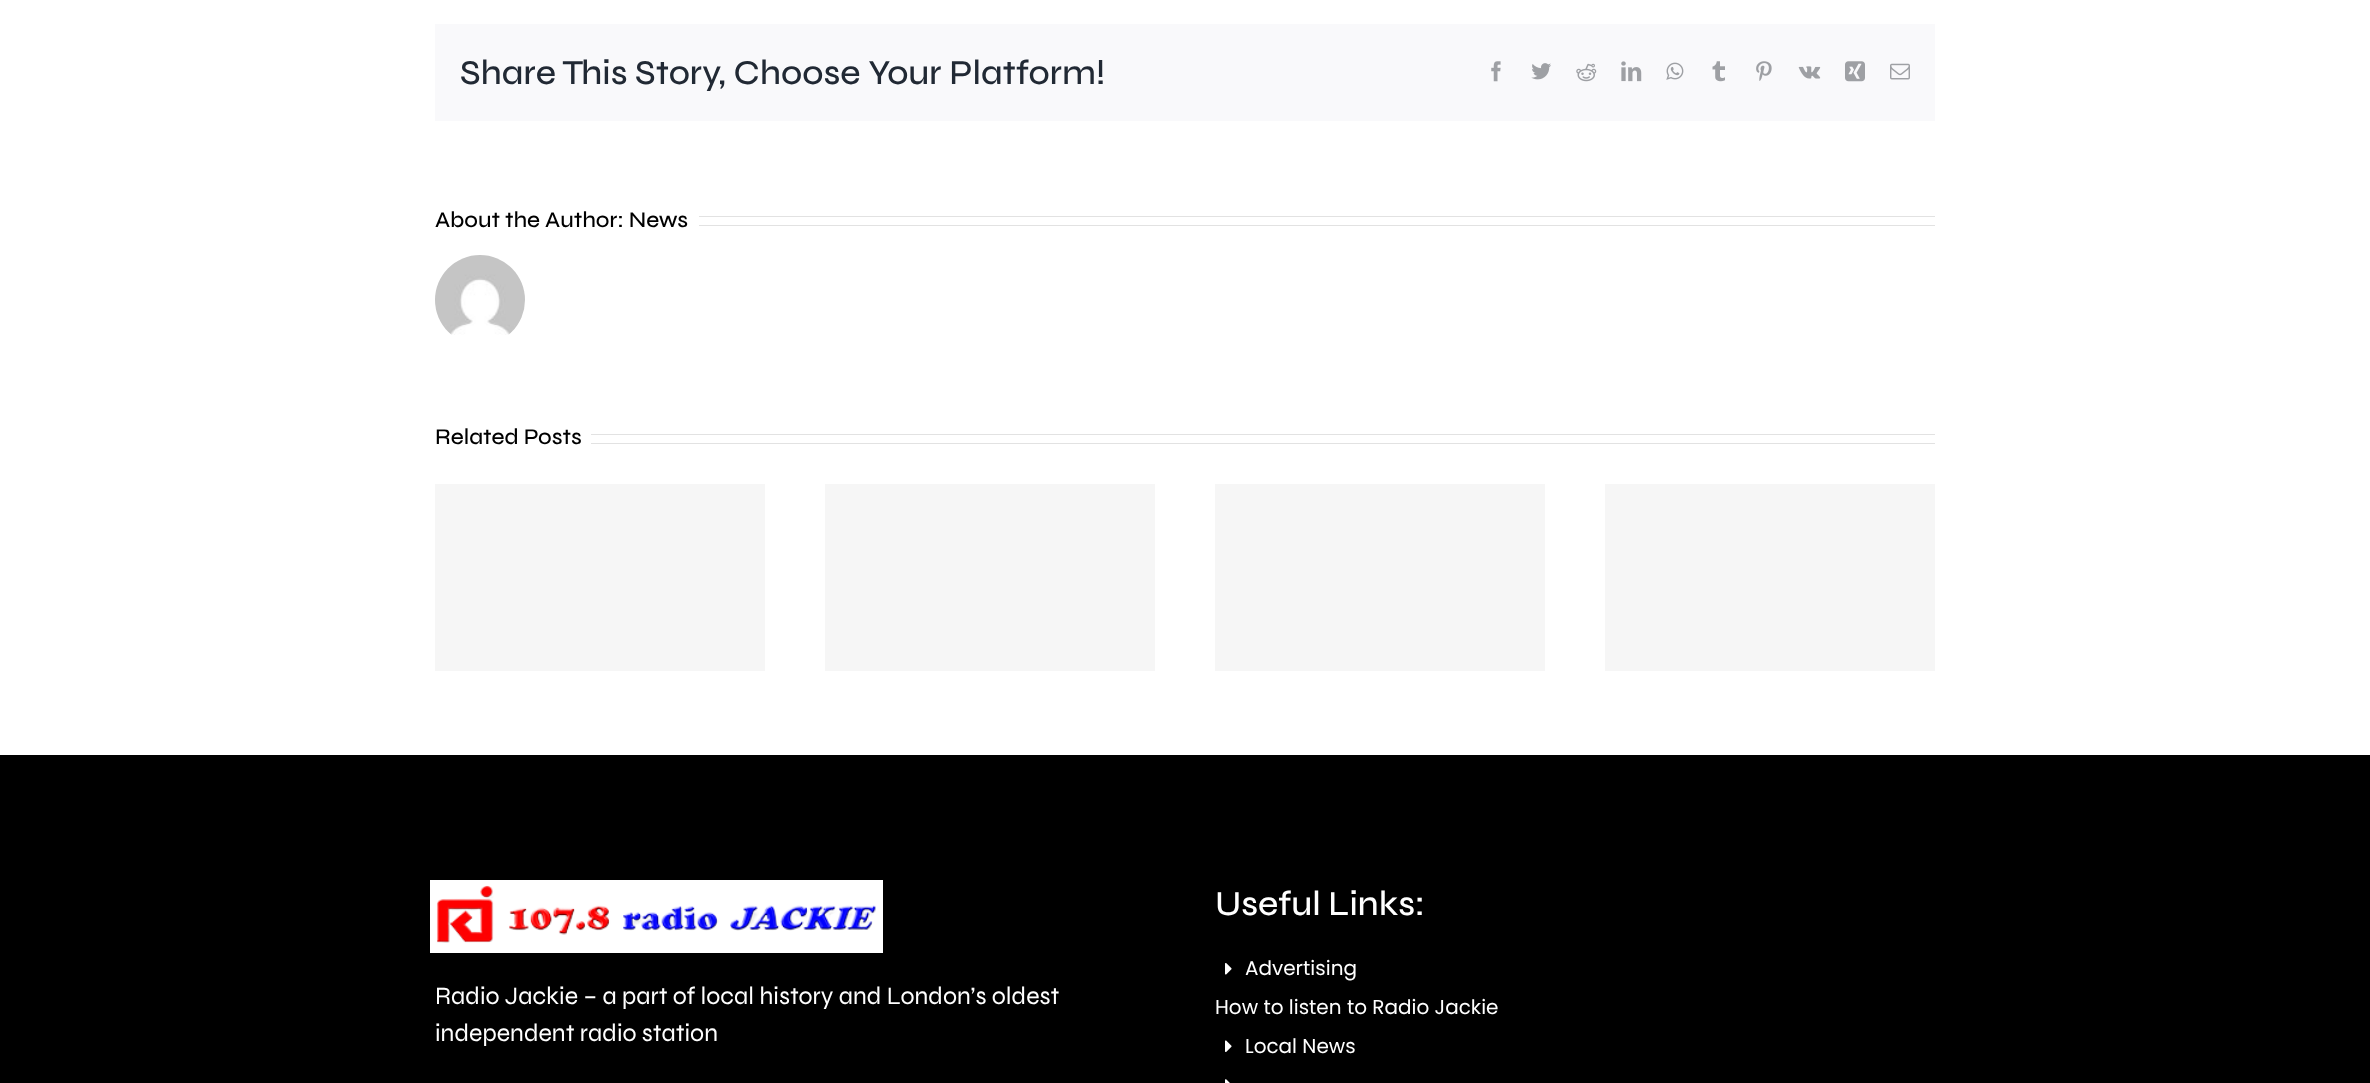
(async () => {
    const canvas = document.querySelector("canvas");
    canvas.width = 2370;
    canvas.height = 1083;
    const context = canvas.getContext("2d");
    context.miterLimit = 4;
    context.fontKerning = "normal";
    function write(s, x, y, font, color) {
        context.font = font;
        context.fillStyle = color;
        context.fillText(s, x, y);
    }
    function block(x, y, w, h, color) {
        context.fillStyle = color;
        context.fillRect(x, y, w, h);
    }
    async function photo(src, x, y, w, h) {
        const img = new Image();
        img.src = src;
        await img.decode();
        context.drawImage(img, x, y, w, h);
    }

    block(0, 0, 2370, 1083, "rgb(255, 255, 255)");
    block(435, 24, 1500, 97, "rgb(249, 249, 251)");
    write("Share This Story, Choose Your Platform!", 460, 84, "500 35px Syne", "rgb(33, 41, 52)");
    await photo("media/1.png", 1491, 61, 10, 21);
    await photo("media/2.png", 1531, 63, 20, 17);
    await photo("media/3.png", 1576, 63, 21, 19);
    await photo("media/4.png", 1621, 61, 21, 21);
    await photo("media/5.png", 1666, 62, 18, 18);
    await photo("media/6.png", 1712, 61, 13, 21);
    await photo("media/7.png", 1756, 61, 16, 20);
    await photo("media/8.png", 1798, 66, 23, 13);
    await photo("media/9.png", 1845, 61, 20, 21);
    await photo("media/10.png", 1890, 63, 20, 17);
    write("About the Author: News", 435, 227, "500 22.5px Syne", "rgb(0, 0, 0)");
    block(699, 216, 1236, 1, "rgb(226, 226, 226)");
    block(699, 225, 1236, 1, "rgb(226, 226, 226)");
    await photo("media/11.png", 435, 255, 90, 80);
    write("Related Posts", 435, 444, "500 22.5px Syne", "rgb(0, 0, 0)");
    block(591, 434, 1344, 1, "rgb(226, 226, 226)");
    block(591, 443, 1344, 1, "rgb(226, 226, 226)");
    block(435, 484, 330, 187, "rgb(246, 246, 246)");
    block(825, 484, 330, 187, "rgb(246, 246, 246)");
    block(1215, 484, 330, 187, "rgb(246, 246, 246)");
    block(1605, 484, 330, 187, "rgb(246, 246, 246)");
    block(0, 755, 2370, 328, "rgb(0, 0, 0)");
    block(430, 880, 453, 73, "rgb(255, 255, 255)");
    await photo("media/12.png", 436, 885, 440, 58);
    write("Radio Jackie – a part of local history and London’s oldest", 435, 1004, "25px Syne", "rgb(255, 255, 255)");
    write("independent radio station", 435, 1041, "25px Syne", "rgb(255, 255, 255)");
    write("Useful Links:", 1215, 915, "500 35px Syne", "rgb(255, 255, 255)");
    await photo("media/13.png", 1225, 963, 7, 12);
    write("Advertising", 1245, 975, "20px Poppins", "rgb(255, 255, 255)");
    write("How to listen to Radio Jackie", 1215, 1014, "20px Poppins", "rgb(255, 255, 255)");
    await photo("media/14.png", 1225, 1040, 7, 12);
    write("Local News", 1245, 1053, "20px Poppins", "rgb(255, 255, 255)");
    await photo("media/15.png", 1225, 1079, 5, 4);
})();
